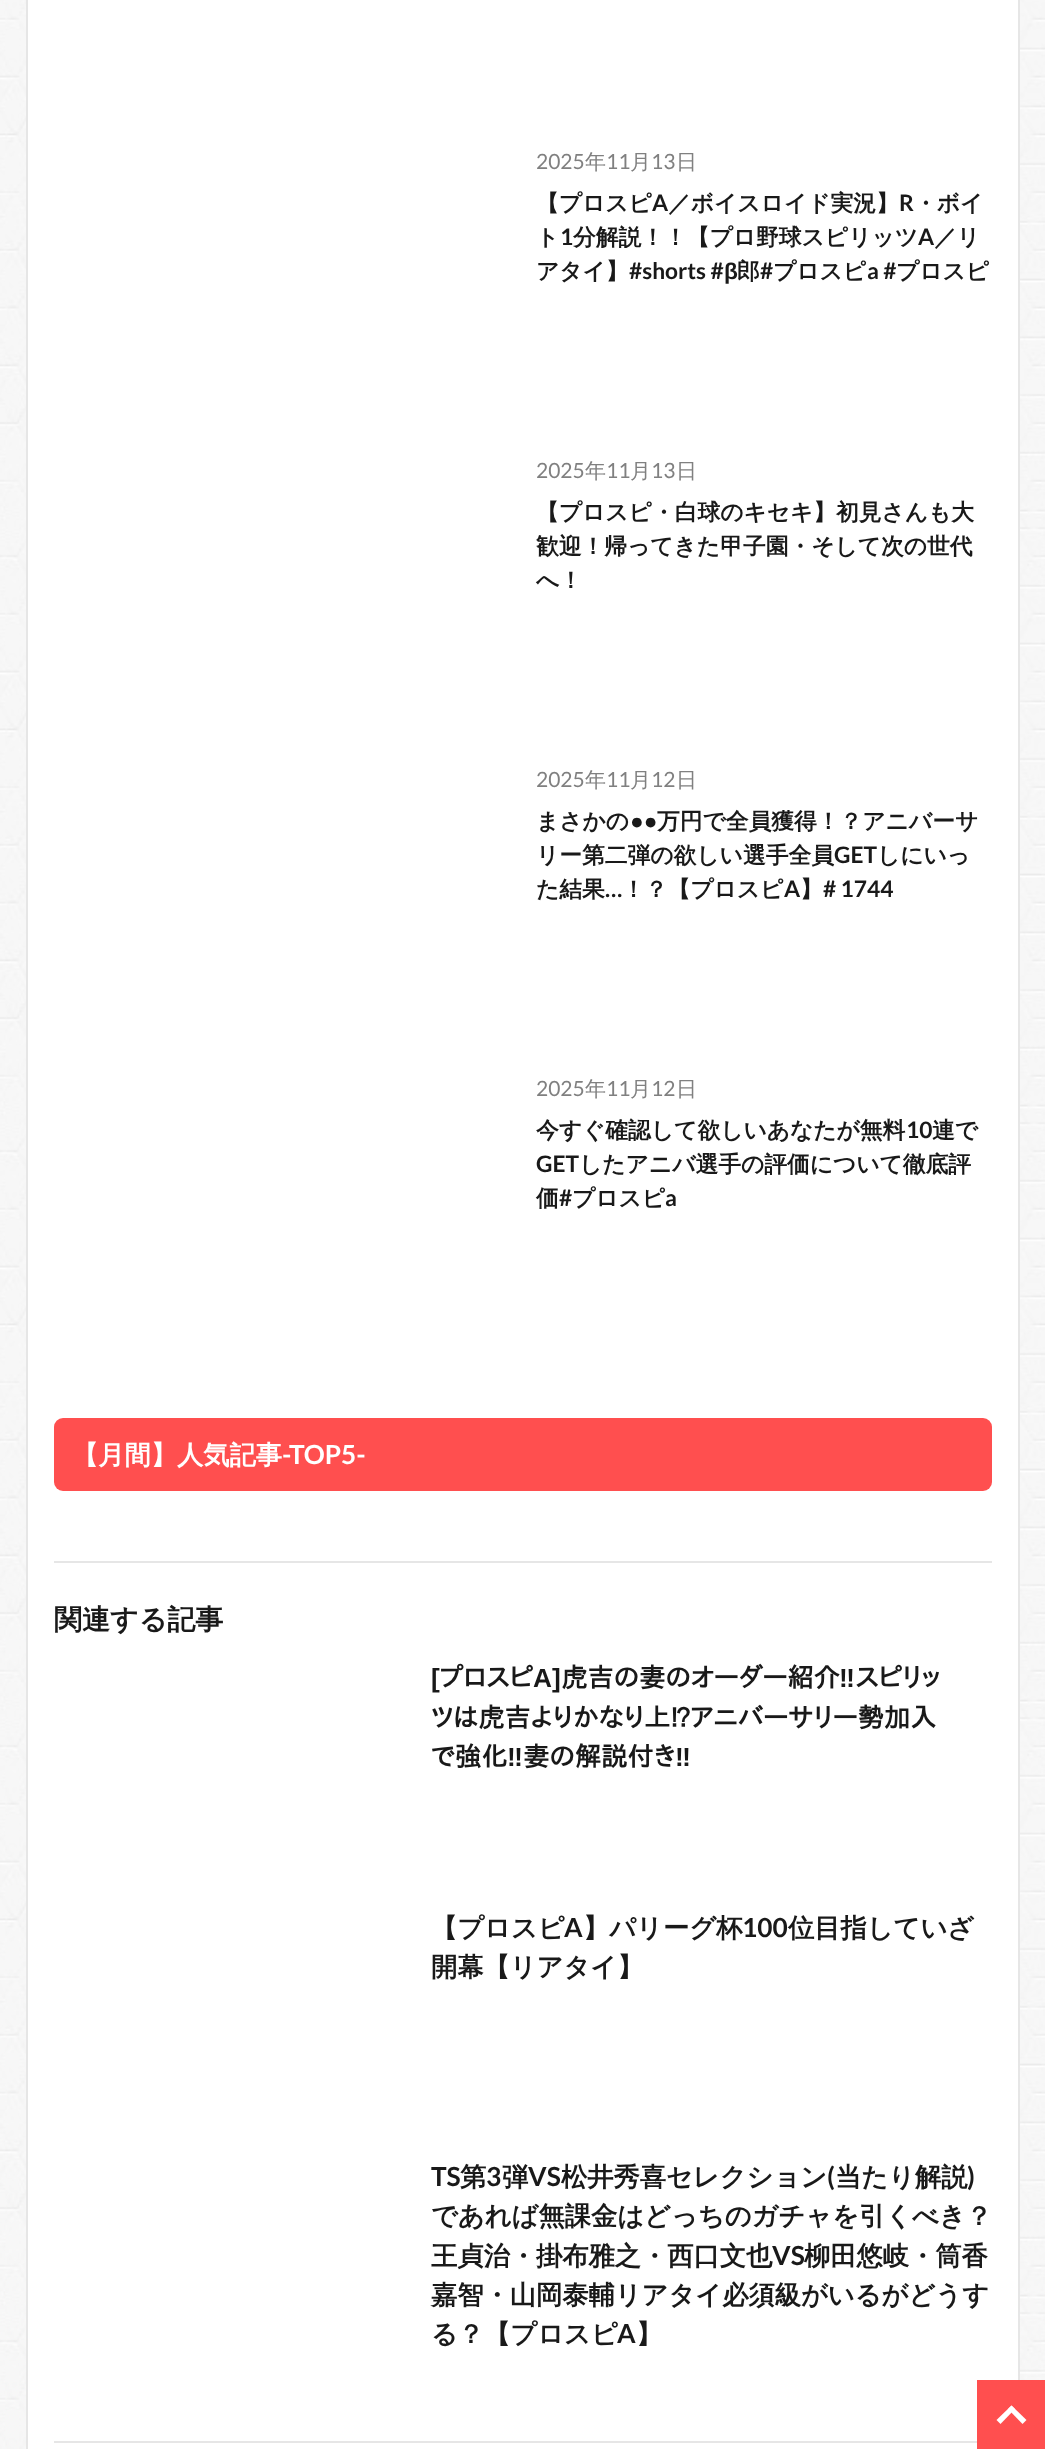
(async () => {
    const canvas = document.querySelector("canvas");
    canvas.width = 1045;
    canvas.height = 2449;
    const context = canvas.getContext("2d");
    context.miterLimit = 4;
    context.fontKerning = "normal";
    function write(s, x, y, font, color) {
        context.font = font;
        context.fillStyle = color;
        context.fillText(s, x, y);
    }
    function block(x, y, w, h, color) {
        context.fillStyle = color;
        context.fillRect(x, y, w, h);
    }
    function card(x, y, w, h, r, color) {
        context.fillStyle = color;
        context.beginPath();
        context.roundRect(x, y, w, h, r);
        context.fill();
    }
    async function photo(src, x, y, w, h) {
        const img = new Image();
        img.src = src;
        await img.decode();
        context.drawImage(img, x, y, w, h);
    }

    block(0, 0, 1045, 2449, "rgb(255, 255, 255)");
    await photo("media/1.png", 0, 0, 1045, 2449);
    context.beginPath();
    context.rect(27, -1, 992, 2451);
    context.fill();
    context.strokeStyle = "rgb(230, 230, 230)";
    context.lineWidth = 2;
    context.stroke();
    write("2025", 536, 169, "21px Lato", "rgb(128, 128, 128)");
    write("年", 585, 169, "500 21px WenQuanYi Zen Hei", "rgb(128, 128, 128)");
    write("11", 606, 169, "21px Lato", "rgb(128, 128, 128)");
    write("月", 630, 169, "500 21px WenQuanYi Zen Hei", "rgb(128, 128, 128)");
    write("13", 651, 169, "21px Lato", "rgb(128, 128, 128)");
    write("日", 676, 169, "500 21px WenQuanYi Zen Hei", "rgb(128, 128, 128)");
    write("【プロスピ", 536, 211, "bold 22.75px WenQuanYi Zen Hei", "rgb(25, 25, 25)");
    write("A", 652, 211, "bold 22.75px Lato", "rgb(25, 25, 25)");
    write("／ボイスロイド実況】", 668, 211, "bold 22.75px WenQuanYi Zen Hei", "rgb(25, 25, 25)");
    write("R", 899, 211, "bold 22.75px Lato", "rgb(25, 25, 25)");
    write("・ボイ", 914, 211, "bold 22.75px WenQuanYi Zen Hei", "rgb(25, 25, 25)");
    write("ト", 536, 245, "bold 22.75px WenQuanYi Zen Hei", "rgb(25, 25, 25)");
    write("1", 560, 245, "bold 22.75px Lato", "rgb(25, 25, 25)");
    write("分解説！！【プロ野球スピリッツ", 573, 245, "bold 22.75px WenQuanYi Zen Hei", "rgb(25, 25, 25)");
    write("A", 918, 245, "bold 22.75px Lato", "rgb(25, 25, 25)");
    write("／リ", 934, 245, "bold 22.75px WenQuanYi Zen Hei", "rgb(25, 25, 25)");
    write("アタイ】", 536, 279, "bold 22.75px WenQuanYi Zen Hei", "rgb(25, 25, 25)");
    write("#shorts #", 629, 279, "bold 22.75px Lato", "rgb(25, 25, 25)");
    write("β", 724, 279, "bold 22.75px Liberation Sans", "rgb(25, 25, 25)");
    write("郎", 737, 279, "bold 22.75px WenQuanYi Zen Hei", "rgb(25, 25, 25)");
    write("#", 760, 279, "bold 22.75px Lato", "rgb(25, 25, 25)");
    write("プロスピ", 773, 279, "bold 22.75px WenQuanYi Zen Hei", "rgb(25, 25, 25)");
    write("a #", 867, 279, "bold 22.75px Lato", "rgb(25, 25, 25)");
    write("プロスピ", 896, 279, "bold 22.75px WenQuanYi Zen Hei", "rgb(25, 25, 25)");
    write("2025", 536, 478, "21px Lato", "rgb(128, 128, 128)");
    write("年", 585, 478, "500 21px WenQuanYi Zen Hei", "rgb(128, 128, 128)");
    write("11", 606, 478, "21px Lato", "rgb(128, 128, 128)");
    write("月", 630, 478, "500 21px WenQuanYi Zen Hei", "rgb(128, 128, 128)");
    write("13", 651, 478, "21px Lato", "rgb(128, 128, 128)");
    write("日", 676, 478, "500 21px WenQuanYi Zen Hei", "rgb(128, 128, 128)");
    write("【プロスピ・白球のキセキ】初見さんも大", 536, 520, "bold 22.75px WenQuanYi Zen Hei", "rgb(25, 25, 25)");
    write("歓迎！帰ってきた甲子園・そして次の世代", 536, 554, "bold 22.75px WenQuanYi Zen Hei", "rgb(25, 25, 25)");
    write("へ！", 536, 588, "bold 22.75px WenQuanYi Zen Hei", "rgb(25, 25, 25)");
    write("2025", 536, 787, "21px Lato", "rgb(128, 128, 128)");
    write("年", 585, 787, "500 21px WenQuanYi Zen Hei", "rgb(128, 128, 128)");
    write("11", 606, 787, "21px Lato", "rgb(128, 128, 128)");
    write("月", 630, 787, "500 21px WenQuanYi Zen Hei", "rgb(128, 128, 128)");
    write("12", 651, 787, "21px Lato", "rgb(128, 128, 128)");
    write("日", 676, 787, "500 21px WenQuanYi Zen Hei", "rgb(128, 128, 128)");
    write("まさかの", 536, 829, "bold 22.75px WenQuanYi Zen Hei", "rgb(25, 25, 25)");
    write("●●", 630, 829, "bold 22.75px Liberation Sans", "rgb(25, 25, 25)");
    write("万円で全員獲得！？アニバーサ", 657, 829, "bold 22.75px WenQuanYi Zen Hei", "rgb(25, 25, 25)");
    write("リー第二弾の欲しい選手全員", 536, 863, "bold 22.75px WenQuanYi Zen Hei", "rgb(25, 25, 25)");
    write("GET", 834, 863, "bold 22.75px Lato", "rgb(25, 25, 25)");
    write("しにいっ", 877, 863, "bold 22.75px WenQuanYi Zen Hei", "rgb(25, 25, 25)");
    write("た結果", 536, 897, "bold 22.75px WenQuanYi Zen Hei", "rgb(25, 25, 25)");
    write("…", 605, 897, "bold 22.75px Lato", "rgb(25, 25, 25)");
    write("！？【プロスピ", 622, 897, "bold 22.75px WenQuanYi Zen Hei", "rgb(25, 25, 25)");
    write("A", 784, 897, "bold 22.75px Lato", "rgb(25, 25, 25)");
    write("】", 800, 897, "bold 22.75px WenQuanYi Zen Hei", "rgb(25, 25, 25)");
    write("# 1744", 823, 897, "bold 22.75px Lato", "rgb(25, 25, 25)");
    write("2025", 536, 1096, "21px Lato", "rgb(128, 128, 128)");
    write("年", 585, 1096, "500 21px WenQuanYi Zen Hei", "rgb(128, 128, 128)");
    write("11", 606, 1096, "21px Lato", "rgb(128, 128, 128)");
    write("月", 630, 1096, "500 21px WenQuanYi Zen Hei", "rgb(128, 128, 128)");
    write("12", 651, 1096, "21px Lato", "rgb(128, 128, 128)");
    write("日", 676, 1096, "500 21px WenQuanYi Zen Hei", "rgb(128, 128, 128)");
    write("今すぐ確認して欲しいあなたが無料", 536, 1138, "bold 22.75px WenQuanYi Zen Hei", "rgb(25, 25, 25)");
    write("10", 906, 1138, "bold 22.75px Lato", "rgb(25, 25, 25)");
    write("連で", 932, 1138, "bold 22.75px WenQuanYi Zen Hei", "rgb(25, 25, 25)");
    write("GET", 536, 1172, "bold 22.75px Lato", "rgb(25, 25, 25)");
    write("したアニバ選手の評価について徹底評", 579, 1172, "bold 22.75px WenQuanYi Zen Hei", "rgb(25, 25, 25)");
    write("価", 536, 1206, "bold 22.75px WenQuanYi Zen Hei", "rgb(25, 25, 25)");
    write("#", 559, 1206, "bold 22.75px Lato", "rgb(25, 25, 25)");
    write("プロスピ", 572, 1206, "bold 22.75px WenQuanYi Zen Hei", "rgb(25, 25, 25)");
    write("a", 665, 1206, "bold 22.75px Lato", "rgb(25, 25, 25)");
    card(54, 1418, 938, 73, 9, "rgb(255, 79, 79)");
    write("【月間】人気記事", 72, 1464, "bold 26.25px WenQuanYi Zen Hei", "rgb(255, 255, 255)");
    write("-TOP5-", 282, 1464, "bold 26.25px Lato", "rgb(255, 255, 255)");
    block(54, 1561, 938, 2, "rgb(230, 230, 230)");
    write("関連する記事", 54, 1629, "bold 28px WenQuanYi Zen Hei", "rgb(25, 25, 25)");
    write("[", 431, 1687, "bold 26.25px Liberation Sans", "rgb(25, 25, 25)");
    write("プロスピ", 439, 1687, "bold 26.25px IPAPGothic", "rgb(25, 25, 25)");
    write("A]", 533, 1687, "bold 26.25px Liberation Sans", "rgb(25, 25, 25)");
    write("虎吉の妻のオーダー紹介", 561, 1687, "bold 26.25px IPAPGothic", "rgb(25, 25, 25)");
    write("‼︎", 839, 1687, "bold 26.25px Liberation Sans", "rgb(25, 25, 25)");
    write("スピリッ", 855, 1687, "bold 26.25px IPAPGothic", "rgb(25, 25, 25)");
    write("ツは虎吉よりかなり上⁉︎アニバーサリー勢加入", 431, 1727, "bold 26.25px IPAPGothic", "rgb(25, 25, 25)");
    write("で強化", 431, 1766, "bold 26.25px IPAPGothic", "rgb(25, 25, 25)");
    write("‼︎", 507, 1766, "bold 26.25px Liberation Sans", "rgb(25, 25, 25)");
    write("妻の解説付き", 523, 1766, "bold 26.25px IPAPGothic", "rgb(25, 25, 25)");
    write("‼︎", 675, 1766, "bold 26.25px Liberation Sans", "rgb(25, 25, 25)");
    write("【プロスピ", 431, 1937, "bold 26.25px WenQuanYi Zen Hei", "rgb(25, 25, 25)");
    write("A", 564, 1937, "bold 26.25px Lato", "rgb(25, 25, 25)");
    write("】パリーグ杯", 583, 1937, "bold 26.25px WenQuanYi Zen Hei", "rgb(25, 25, 25)");
    write("100", 742, 1937, "bold 26.25px Lato", "rgb(25, 25, 25)");
    write("位目指していざ", 788, 1937, "bold 26.25px WenQuanYi Zen Hei", "rgb(25, 25, 25)");
    write("開幕【リアタイ】", 431, 1976, "bold 26.25px WenQuanYi Zen Hei", "rgb(25, 25, 25)");
    write("第", 460, 2186, "bold 26.25px WenQuanYi Zen Hei", "rgb(25, 25, 25)");
    write("弾", 502, 2186, "bold 26.25px WenQuanYi Zen Hei", "rgb(25, 25, 25)");
    write("松井秀喜セレクション 当たり解説", 561, 2186, "bold 26.25px WenQuanYi Zen Hei", "rgb(25, 25, 25)");
    write("TS", 431, 2186, "bold 26.25px Lato", "rgb(25, 25, 25)");
    write("3", 486, 2186, "bold 26.25px Lato", "rgb(25, 25, 25)");
    write("VS", 528, 2186, "bold 26.25px Lato", "rgb(25, 25, 25)");
    write("(", 827, 2186, "bold 26.25px Lato", "rgb(25, 25, 25)");
    write(")", 967, 2186, "bold 26.25px Lato", "rgb(25, 25, 25)");
    write("であれば無課金はどっちのガチャを引くべき？", 431, 2225, "bold 26.25px WenQuanYi Zen Hei", "rgb(25, 25, 25)");
    write("王貞治・掛布雅之・西口文也", 431, 2265, "bold 26.25px WenQuanYi Zen Hei", "rgb(25, 25, 25)");
    write("VS", 772, 2265, "bold 26.25px Lato", "rgb(25, 25, 25)");
    write("柳田悠岐・筒香", 804, 2265, "bold 26.25px WenQuanYi Zen Hei", "rgb(25, 25, 25)");
    write("嘉智・山岡泰輔リアタイ必須級がいるがどうす", 431, 2304, "bold 26.25px WenQuanYi Zen Hei", "rgb(25, 25, 25)");
    write("る？【プロスピ", 431, 2343, "bold 26.25px WenQuanYi Zen Hei", "rgb(25, 25, 25)");
    write("A", 617, 2343, "bold 26.25px Lato", "rgb(25, 25, 25)");
    write("】", 636, 2343, "bold 26.25px WenQuanYi Zen Hei", "rgb(25, 25, 25)");
    block(54, 2441, 923, 2, "rgb(230, 230, 230)");
    block(977, 2380, 68, 69, "rgb(255, 79, 79)");
    context.fillStyle = "rgb(255, 255, 255)";
    context.beginPath();
    context.moveTo(996.5, 2420);
    context.lineTo(1011.5, 2405.5);
    context.lineTo(1015, 2409);
    context.lineTo(1000.5, 2424);
    context.closePath();
    context.fill();
    context.beginPath();
    context.moveTo(1008, 2409);
    context.lineTo(1011.5, 2405.5);
    context.lineTo(1026.5, 2420);
    context.lineTo(1022.5, 2424);
    context.closePath();
    context.fill();
})();
